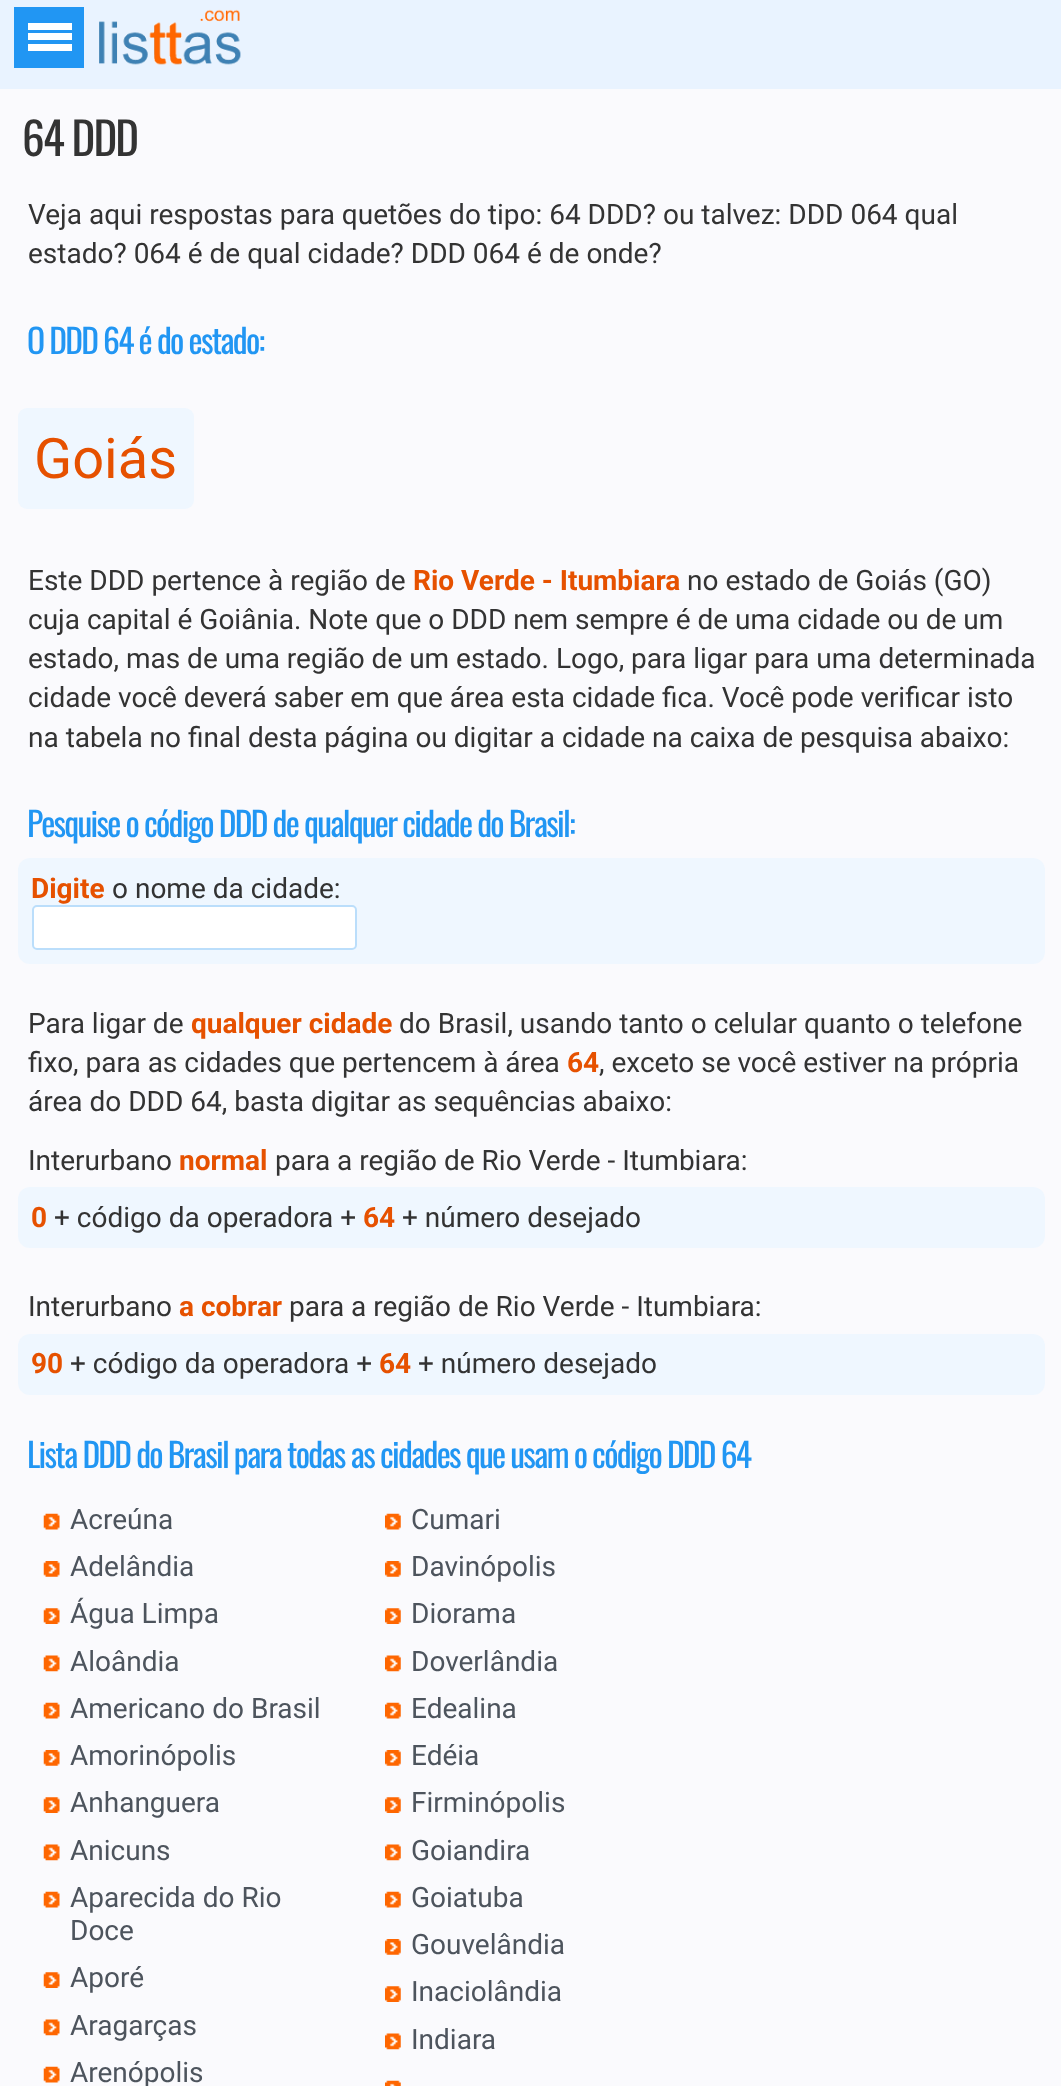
(async () => {
    const canvas = document.querySelector("canvas");
    canvas.width = 1061;
    canvas.height = 2086;
    const context = canvas.getContext("2d");
    context.miterLimit = 4;
    context.fontKerning = "normal";
    function write(s, x, y, font, color) {
        context.font = font;
        context.fillStyle = color;
        context.fillText(s, x, y);
    }
    function block(x, y, w, h, color) {
        context.fillStyle = color;
        context.fillRect(x, y, w, h);
    }
    function card(x, y, w, h, r, color) {
        context.fillStyle = color;
        context.beginPath();
        context.roundRect(x, y, w, h, r);
        context.fill();
    }
    async function photo(src, x, y, w, h) {
        const img = new Image();
        img.src = src;
        await img.decode();
        context.drawImage(img, x, y, w, h);
    }

    block(0, 0, 1061, 2086, "rgb(250, 250, 253)");
    block(0, 0, 1061, 89, "rgb(233, 243, 255)");
    block(14, 7, 70, 61, "rgb(33, 150, 243)");
    block(28, 33, 44, 7, "rgb(255, 255, 255)");
    block(28, 23, 44, 7, "rgb(255, 255, 255)");
    block(28, 44, 44, 7, "rgb(255, 255, 255)");
    await photo("media/1.png", 99, 9, 142, 56);
    context.letterSpacing = "-1.75px";
    write("64 DDD", 22, 156, "45px Oswald", "rgb(51, 51, 51)");
    context.letterSpacing = "0px";
    write("Veja aqui respostas para quetões do tipo: 64 DDD? ou talvez: DDD 064 qual", 28, 224, "28px Roboto", "rgb(51, 51, 51)");
    write("estado? 064 é de qual cidade? DDD 064 é de onde?", 28, 263, "28px Roboto", "rgb(51, 51, 51)");
    context.letterSpacing = "-1.75px";
    write("O DDD 64 é do estado:", 27, 354, "33.6px Oswald", "rgb(33, 150, 243)");
    card(18, 408, 176, 101, 9, "rgb(239, 247, 255)");
    context.letterSpacing = "0px";
    write("Goiás", 34, 478, "56px Roboto", "rgb(230, 81, 0)");
    write("Este DDD pertence à região de", 28, 590, "28px Roboto", "rgb(51, 51, 51)");
    write("Rio Verde - Itumbiara", 413, 590, "bold 28px Roboto", "rgb(230, 81, 0)");
    write("no estado de Goiás (GO)", 687, 590, "28px Roboto", "rgb(51, 51, 51)");
    write("cuja capital é Goiânia. Note que o DDD nem sempre é de uma cidade ou de um", 28, 629, "28px Roboto", "rgb(51, 51, 51)");
    write("estado, mas de uma região de um estado. Logo, para ligar para uma determinada", 28, 668, "28px Roboto", "rgb(51, 51, 51)");
    write("cidade você deverá saber em que área esta cidade fica. Você pode verificar isto", 28, 707, "28px Roboto", "rgb(51, 51, 51)");
    write("na tabela no final desta página ou digitar a cidade na caixa de pesquisa abaixo:", 28, 747, "28px Roboto", "rgb(51, 51, 51)");
    context.letterSpacing = "-1.75px";
    write("Pesquise o código DDD de qualquer cidade do Brasil:", 27, 837, "33.6px Oswald", "rgb(33, 150, 243)");
    card(18, 858, 1027, 106, 12, "rgb(239, 247, 255)");
    context.letterSpacing = "0px";
    write("Digite", 31, 898, "bold 28px Roboto", "rgb(230, 81, 0)");
    write("o nome da cidade:", 112, 898, "28px Roboto", "rgb(51, 51, 51)");
    context.fillStyle = "rgb(255, 255, 255)";
    context.beginPath();
    context.roundRect(33, 906, 323, 43, 4);
    context.fill();
    context.strokeStyle = "rgb(187, 222, 251)";
    context.lineWidth = 2;
    context.stroke();
    write("Para ligar de", 28, 1033, "28px Roboto", "rgb(51, 51, 51)");
    write("qualquer cidade", 191, 1033, "bold 28px Roboto", "rgb(230, 81, 0)");
    write("do Brasil, usando tanto o celular quanto o telefone", 399, 1033, "28px Roboto", "rgb(51, 51, 51)");
    write("fixo, para as cidades que pertencem à área", 28, 1072, "28px Roboto", "rgb(51, 51, 51)");
    write("64", 567, 1072, "bold 28px Roboto", "rgb(230, 81, 0)");
    write(", exceto se você estiver na própria", 599, 1072, "28px Roboto", "rgb(51, 51, 51)");
    write("área do DDD 64, basta digitar as sequências abaixo:", 28, 1111, "28px Roboto", "rgb(51, 51, 51)");
    write("Interurbano", 28, 1170, "28px Roboto", "rgb(51, 51, 51)");
    write("normal", 179, 1170, "bold 28px Roboto", "rgb(230, 81, 0)");
    write("para a região de Rio Verde - Itumbiara:", 275, 1170, "28px Roboto", "rgb(51, 51, 51)");
    card(18, 1187, 1027, 61, 12, "rgb(239, 247, 255)");
    write("0", 31, 1227, "bold 28px Roboto", "rgb(230, 81, 0)");
    write("+ código da operadora +", 54, 1227, "28px Roboto", "rgb(51, 51, 51)");
    write("64", 363, 1227, "bold 28px Roboto", "rgb(230, 81, 0)");
    write("+ número desejado", 402, 1227, "28px Roboto", "rgb(51, 51, 51)");
    write("Interurbano", 28, 1316, "28px Roboto", "rgb(51, 51, 51)");
    write("a cobrar", 179, 1316, "bold 28px Roboto", "rgb(230, 81, 0)");
    write("para a região de Rio Verde - Itumbiara:", 289, 1316, "28px Roboto", "rgb(51, 51, 51)");
    card(18, 1334, 1027, 61, 12, "rgb(239, 247, 255)");
    write("90", 31, 1373, "bold 28px Roboto", "rgb(230, 81, 0)");
    write("+ código da operadora +", 70, 1373, "28px Roboto", "rgb(51, 51, 51)");
    write("64", 379, 1373, "bold 28px Roboto", "rgb(230, 81, 0)");
    write("+ número desejado", 418, 1373, "28px Roboto", "rgb(51, 51, 51)");
    context.letterSpacing = "-1.75px";
    write("Lista DDD do Brasil para todas as cidades que usam o código DDD 64", 27, 1468, "33.6px Oswald", "rgb(33, 150, 243)");
    await photo("media/2.png", 43, 1513, 17, 17);
    context.letterSpacing = "0px";
    write("Acreúna", 70, 1529, "28px Roboto", "rgb(77, 84, 93)");
    await photo("media/3.png", 43, 1561, 17, 16);
    write("Adelândia", 70, 1576, "28px Roboto", "rgb(77, 84, 93)");
    await photo("media/4.png", 43, 1608, 17, 16);
    write("Água Limpa", 70, 1623, "28px Roboto", "rgb(77, 84, 93)");
    await photo("media/5.png", 43, 1655, 17, 17);
    write("Aloândia", 70, 1671, "28px Roboto", "rgb(77, 84, 93)");
    await photo("media/2.png", 43, 1702, 17, 17);
    write("Americano do Brasil", 70, 1718, "28px Roboto", "rgb(77, 84, 93)");
    await photo("media/3.png", 43, 1750, 17, 16);
    write("Amorinópolis", 70, 1765, "28px Roboto", "rgb(77, 84, 93)");
    await photo("media/6.png", 43, 1797, 17, 16);
    write("Anhanguera", 70, 1812, "28px Roboto", "rgb(77, 84, 93)");
    await photo("media/5.png", 43, 1844, 17, 17);
    write("Anicuns", 70, 1860, "28px Roboto", "rgb(77, 84, 93)");
    await photo("media/2.png", 43, 1891, 17, 17);
    write("Aparecida do Rio", 70, 1907, "28px Roboto", "rgb(77, 84, 93)");
    write("Doce", 70, 1940, "28px Roboto", "rgb(77, 84, 93)");
    await photo("media/4.png", 43, 1972, 17, 16);
    write("Aporé", 70, 1987, "28px Roboto", "rgb(77, 84, 93)");
    await photo("media/5.png", 43, 2019, 17, 17);
    write("Aragarças", 70, 2035, "28px Roboto", "rgb(77, 84, 93)");
    await photo("media/2.png", 43, 2066, 17, 17);
    write("Arenópolis", 70, 2082, "28px Roboto", "rgb(77, 84, 93)");
    await photo("media/7.png", 385, 1513, 16, 17);
    write("Cumari", 411, 1529, "28px Roboto", "rgb(77, 84, 93)");
    await photo("media/8.png", 385, 1561, 16, 16);
    write("Davinópolis", 411, 1576, "28px Roboto", "rgb(77, 84, 93)");
    await photo("media/9.png", 385, 1608, 16, 16);
    write("Diorama", 411, 1623, "28px Roboto", "rgb(77, 84, 93)");
    await photo("media/10.png", 385, 1655, 16, 17);
    write("Doverlândia", 411, 1671, "28px Roboto", "rgb(77, 84, 93)");
    await photo("media/7.png", 385, 1702, 16, 17);
    write("Edealina", 411, 1718, "28px Roboto", "rgb(77, 84, 93)");
    await photo("media/8.png", 385, 1750, 16, 16);
    write("Edéia", 411, 1765, "28px Roboto", "rgb(77, 84, 93)");
    await photo("media/11.png", 385, 1797, 16, 16);
    write("Firminópolis", 411, 1812, "28px Roboto", "rgb(77, 84, 93)");
    await photo("media/10.png", 385, 1844, 16, 17);
    write("Goiandira", 411, 1860, "28px Roboto", "rgb(77, 84, 93)");
    await photo("media/7.png", 385, 1891, 16, 17);
    write("Goiatuba", 411, 1907, "28px Roboto", "rgb(77, 84, 93)");
    await photo("media/8.png", 385, 1939, 16, 16);
    write("Gouvelândia", 411, 1954, "28px Roboto", "rgb(77, 84, 93)");
    await photo("media/9.png", 385, 1986, 16, 16);
    write("Inaciolândia", 411, 2001, "28px Roboto", "rgb(77, 84, 93)");
    await photo("media/10.png", 385, 2033, 16, 17);
    write("Indiara", 411, 2049, "28px Roboto", "rgb(77, 84, 93)");
    await photo("media/12.png", 385, 2080, 16, 6);
})();
